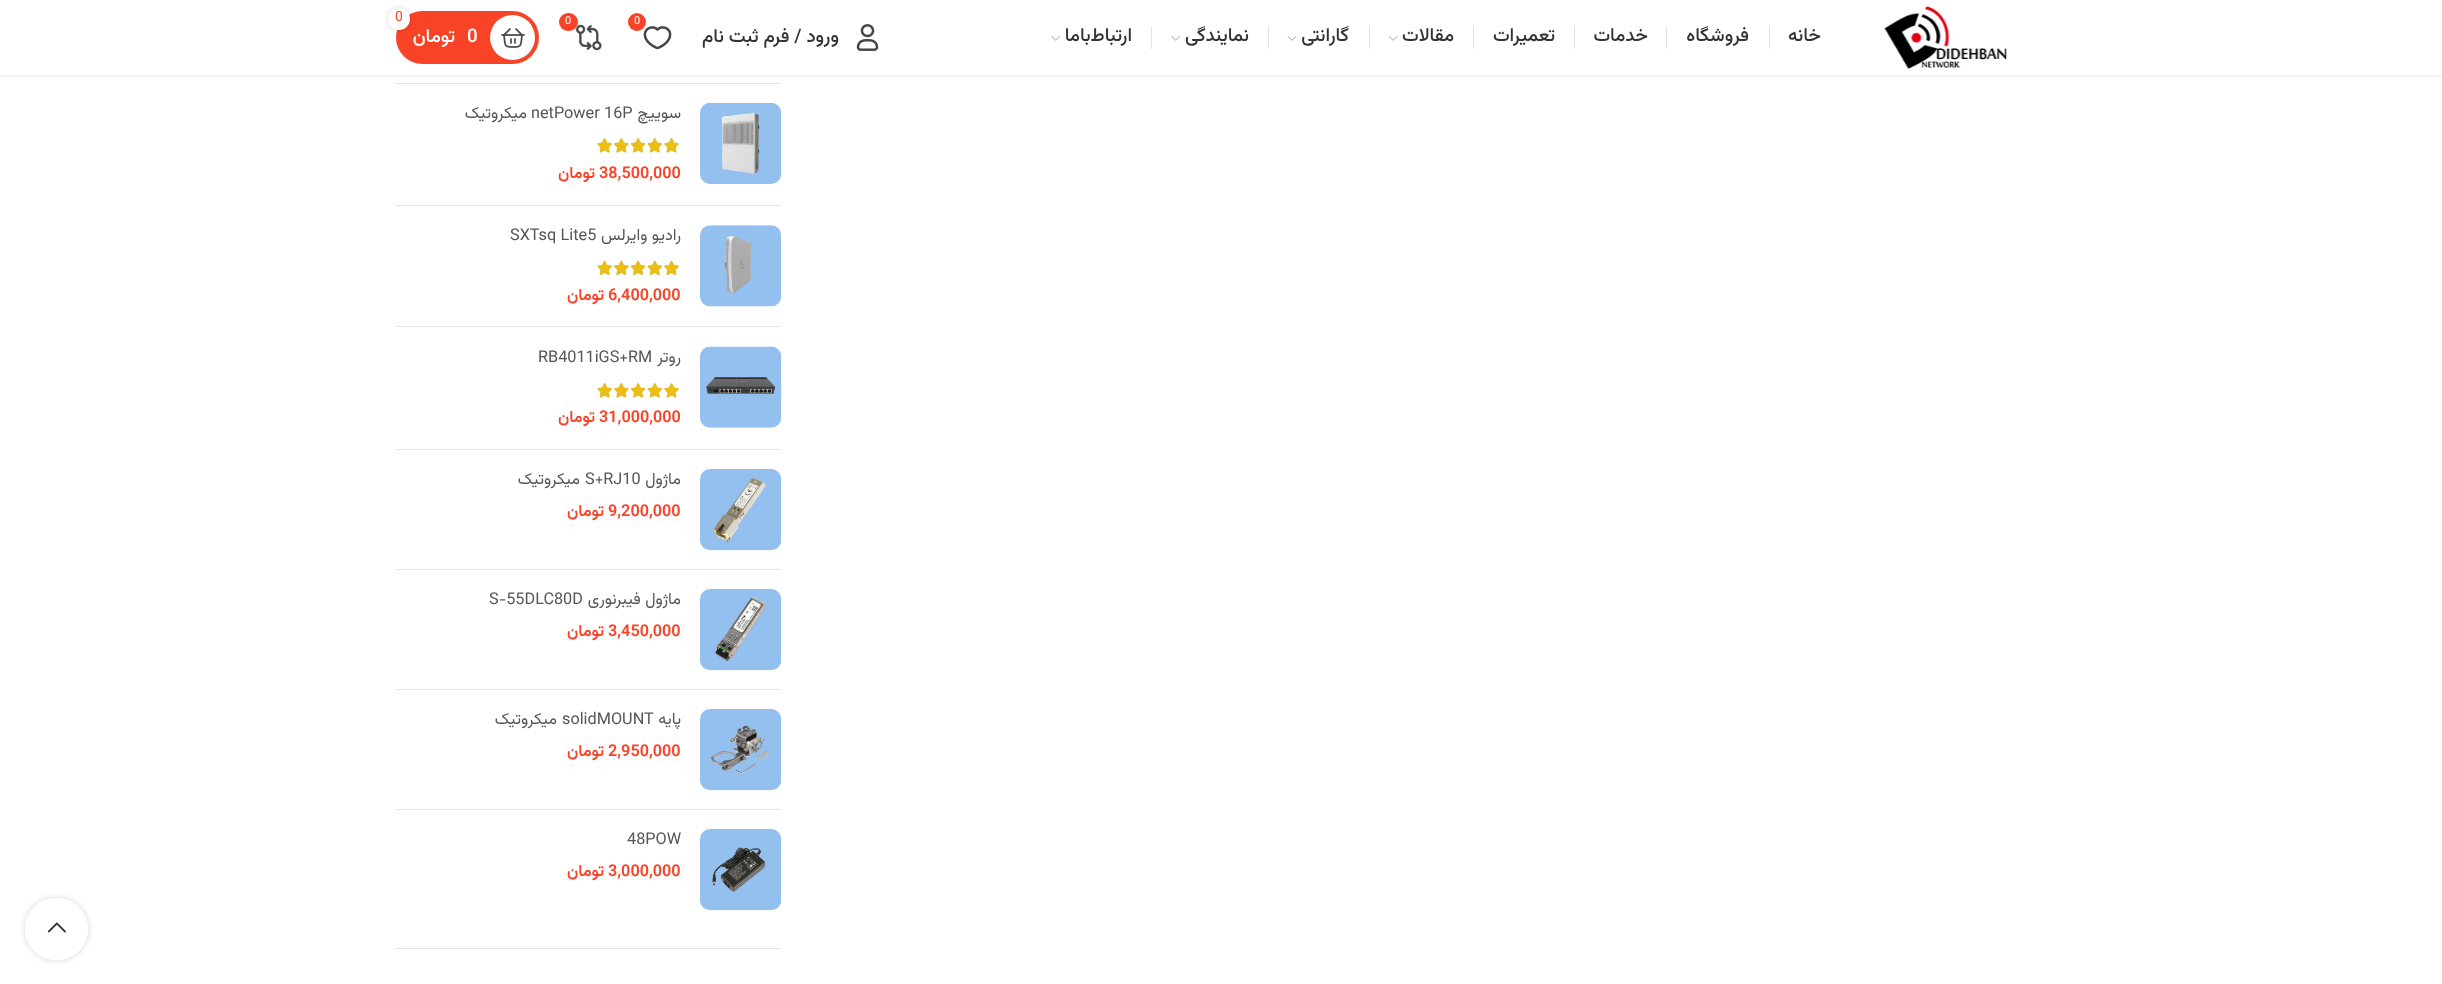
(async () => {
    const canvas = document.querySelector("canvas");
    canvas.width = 2442;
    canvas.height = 984;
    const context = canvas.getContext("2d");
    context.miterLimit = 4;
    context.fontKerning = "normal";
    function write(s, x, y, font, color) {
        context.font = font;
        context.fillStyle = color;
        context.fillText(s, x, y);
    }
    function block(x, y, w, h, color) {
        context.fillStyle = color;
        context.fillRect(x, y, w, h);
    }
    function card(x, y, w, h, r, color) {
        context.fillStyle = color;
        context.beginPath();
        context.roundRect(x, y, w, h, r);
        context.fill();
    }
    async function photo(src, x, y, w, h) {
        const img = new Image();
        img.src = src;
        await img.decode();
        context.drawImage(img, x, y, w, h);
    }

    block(0, 0, 2442, 984, "rgb(255, 255, 255)");
    context.fillStyle = "rgba(0, 0, 0, 0.1)";
    context.filter = "blur(2px)";
    context.beginPath();
    context.rect(0, 1, 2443, 75);
    context.fill();
    context.filter = "none";
    block(0, 0, 2442, 75, "rgb(255, 255, 255)");
    await photo("media/1.png", 1884, 6, 123, 63);
    context.direction = "rtl";
    write("خانه", 1821, 41, "500 18.75px Vazirmatn", "rgb(51, 51, 51)");
    block(1769, 26, 1, 23, "rgb(228, 228, 228)");
    write("فروشگاه", 1749, 41, "500 18.75px Vazirmatn", "rgb(51, 51, 51)");
    block(1666, 26, 1, 23, "rgb(228, 228, 228)");
    write("خدمات", 1648, 41, "500 18.75px Vazirmatn", "rgb(51, 51, 51)");
    block(1574, 26, 1, 23, "rgb(228, 228, 228)");
    write("تعمیرات", 1555, 41, "500 18.75px Vazirmatn", "rgb(51, 51, 51)");
    block(1473, 26, 1, 23, "rgb(228, 228, 228)");
    write("مقالات", 1454, 41, "500 18.75px Vazirmatn", "rgb(51, 51, 51)");
    await photo("media/2.png", 1389, 36, 9, 5);
    block(1369, 26, 1, 23, "rgb(228, 228, 228)");
    write("گارانتی", 1349, 41, "500 18.75px Vazirmatn", "rgb(51, 51, 51)");
    await photo("media/3.png", 1287, 36, 10, 5);
    block(1268, 26, 1, 23, "rgb(228, 228, 228)");
    write("نمایندگی", 1249, 41, "500 18.75px Vazirmatn", "rgb(51, 51, 51)");
    await photo("media/4.png", 1171, 36, 9, 5);
    block(1151, 26, 1, 23, "rgb(228, 228, 228)");
    write("ارتباط‌با‌ما", 1132, 41, "500 18.75px Vazirmatn", "rgb(51, 51, 51)");
    await photo("media/4.png", 1051, 36, 9, 5);
    await photo("media/5.png", 643, 26, 29, 24);
    context.fillStyle = "rgb(249, 67, 39)";
    context.beginPath();
    context.arc(637, 22, 9, 0, Math.PI * 2);
    context.fill();
    context.direction = "ltr";
    write("0", 634, 24, "11px Vazirmatn", "rgb(255, 255, 255)");
    await photo("media/6.png", 576, 24, 26, 27);
    card(559, 13, 19, 18, 9, "rgb(249, 67, 39)");
    write("0", 565, 24, "11px Vazirmatn", "rgb(255, 255, 255)");
    card(396, 11, 143, 53, 26.5, "rgb(249, 67, 39)");
    context.fillStyle = "rgb(255, 255, 255)";
    context.beginPath();
    context.arc(512.5, 37.5, 22.5, 0, Math.PI * 2);
    context.fill();
    context.fillStyle = "rgba(0, 0, 0, 0.17)";
    context.filter = "blur(2.5px)";
    context.beginPath();
    context.roundRect(388, 8, 22, 22, 11);
    context.fill();
    context.filter = "none";
    context.fillStyle = "rgb(255, 255, 255)";
    context.beginPath();
    context.arc(399, 19, 11, 0, Math.PI * 2);
    context.fill();
    write("0", 395, 21, "14px Vazirmatn", "rgb(249, 67, 39)");
    await photo("media/7.png", 501, 28, 24, 20);
    write("0", 467, 42, "500 18.75px Vazirmatn", "rgb(255, 255, 255)");
    context.direction = "rtl";
    write("تومان", 455, 42, "500 18.75px Vazirmatn", "rgb(255, 255, 255)");
    await photo("media/8.png", 856, 24, 23, 27);
    write("ورود / فرم ثبت نام", 839, 42, "500 18.75px Vazirmatn", "rgb(51, 51, 51)");
    block(396, 948, 385, 1, "rgb(228, 228, 228)");
    block(396, 83, 385, 1, "rgb(228, 228, 228)");
    block(396, 205, 385, 1, "rgb(228, 228, 228)");
    await photo("media/9.png", 700, 102, 82, 82);
    write("سوییچ", 681, 118, "16.25px Vazirmatn", "rgb(86, 86, 86)");
    context.direction = "ltr";
    write("netPower 16P", 531, 118, "16.25px Vazirmatn", "rgb(86, 86, 86)");
    context.direction = "rtl";
    write("میکروتیک", 527, 118, "16.25px Vazirmatn", "rgb(86, 86, 86)");
    await photo("media/10.png", 597, 138, 82, 15);
    await photo("media/11.png", 598, 138, 81, 15);
    context.direction = "ltr";
    write("38,500,000", 599, 178, "600 16.25px Vazirmatn", "rgb(249, 67, 39)");
    context.direction = "rtl";
    write("تومان", 595, 178, "600 16.25px Vazirmatn", "rgb(249, 67, 39)");
    block(396, 326, 385, 1, "rgb(228, 228, 228)");
    await photo("media/12.png", 700, 225, 82, 82);
    write("رادیو وایرلس", 681, 240, "16.25px Vazirmatn", "rgb(86, 86, 86)");
    context.direction = "ltr";
    write("SXTsq Lite5", 510, 240, "16.25px Vazirmatn", "rgb(86, 86, 86)");
    await photo("media/13.png", 597, 260, 82, 15);
    await photo("media/14.png", 598, 260, 81, 15);
    write("6,400,000", 608, 300, "600 16.25px Vazirmatn", "rgb(249, 67, 39)");
    context.direction = "rtl";
    write("تومان", 604, 300, "600 16.25px Vazirmatn", "rgb(249, 67, 39)");
    block(396, 449, 385, 1, "rgb(228, 228, 228)");
    await photo("media/15.png", 700, 346, 82, 82);
    write("روتر", 681, 362, "16.25px Vazirmatn", "rgb(86, 86, 86)");
    context.direction = "ltr";
    write("RB4011iGS+RM", 538, 362, "16.25px Vazirmatn", "rgb(86, 86, 86)");
    await photo("media/10.png", 597, 383, 82, 15);
    await photo("media/11.png", 598, 383, 81, 15);
    write("31,000,000", 599, 422, "600 16.25px Vazirmatn", "rgb(249, 67, 39)");
    context.direction = "rtl";
    write("تومان", 595, 422, "600 16.25px Vazirmatn", "rgb(249, 67, 39)");
    block(396, 569, 385, 1, "rgb(228, 228, 228)");
    await photo("media/16.png", 700, 469, 82, 82);
    write("ماژول", 681, 484, "16.25px Vazirmatn", "rgb(86, 86, 86)");
    context.direction = "ltr";
    write("S+RJ10", 585, 484, "16.25px Vazirmatn", "rgb(86, 86, 86)");
    context.direction = "rtl";
    write("میکروتیک", 580, 484, "16.25px Vazirmatn", "rgb(86, 86, 86)");
    context.direction = "ltr";
    write("9,200,000", 608, 516, "600 16.25px Vazirmatn", "rgb(249, 67, 39)");
    context.direction = "rtl";
    write("تومان", 604, 516, "600 16.25px Vazirmatn", "rgb(249, 67, 39)");
    block(396, 689, 385, 1, "rgb(228, 228, 228)");
    await photo("media/17.png", 700, 589, 82, 82);
    write("ماژول فیبرنوری", 681, 604, "16.25px Vazirmatn", "rgb(86, 86, 86)");
    context.direction = "ltr";
    write("S-55DLC80D", 489, 604, "16.25px Vazirmatn", "rgb(86, 86, 86)");
    write("3,450,000", 608, 636, "600 16.25px Vazirmatn", "rgb(249, 67, 39)");
    context.direction = "rtl";
    write("تومان", 604, 636, "600 16.25px Vazirmatn", "rgb(249, 67, 39)");
    block(396, 809, 385, 1, "rgb(228, 228, 228)");
    await photo("media/18.png", 700, 709, 82, 82);
    write("پایه", 681, 724, "16.25px Vazirmatn", "rgb(86, 86, 86)");
    context.direction = "ltr";
    write("solidMOUNT", 562, 724, "16.25px Vazirmatn", "rgb(86, 86, 86)");
    context.direction = "rtl";
    write("میکروتیک", 557, 724, "16.25px Vazirmatn", "rgb(86, 86, 86)");
    context.direction = "ltr";
    write("2,950,000", 608, 756, "600 16.25px Vazirmatn", "rgb(249, 67, 39)");
    context.direction = "rtl";
    write("تومان", 604, 756, "600 16.25px Vazirmatn", "rgb(249, 67, 39)");
    await photo("media/19.png", 700, 829, 82, 82);
    context.direction = "ltr";
    write("48POW", 627, 844, "16.25px Vazirmatn", "rgb(86, 86, 86)");
    write("3,000,000", 608, 876, "600 16.25px Vazirmatn", "rgb(249, 67, 39)");
    context.direction = "rtl";
    write("تومان", 604, 876, "600 16.25px Vazirmatn", "rgb(249, 67, 39)");
    context.save();
    context.beginPath();
    context.moveTo(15, 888);
    context.lineTo(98, 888);
    context.lineTo(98, 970);
    context.lineTo(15, 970);
    context.closePath();
    context.moveTo(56, 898);
    context.lineTo(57, 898);
    context.bezierCurveTo(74, 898, 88, 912, 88, 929);
    context.bezierCurveTo(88, 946, 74, 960, 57, 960);
    context.lineTo(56, 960);
    context.bezierCurveTo(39, 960, 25, 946, 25, 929);
    context.bezierCurveTo(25, 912, 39, 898, 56, 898);
    context.closePath();
    context.clip("evenodd");
    context.fillStyle = "rgba(0, 0, 0, 0.17)";
    context.filter = "blur(3px)";
    context.beginPath();
    context.roundRect(25, 898, 63, 62, 31);
    context.fill();
    context.filter = "none";
    context.restore();
    card(25, 898, 63, 62, 31, "rgba(255, 255, 255, 0.9)");
    await photo("media/20.png", 47, 922, 19, 11);
})();
